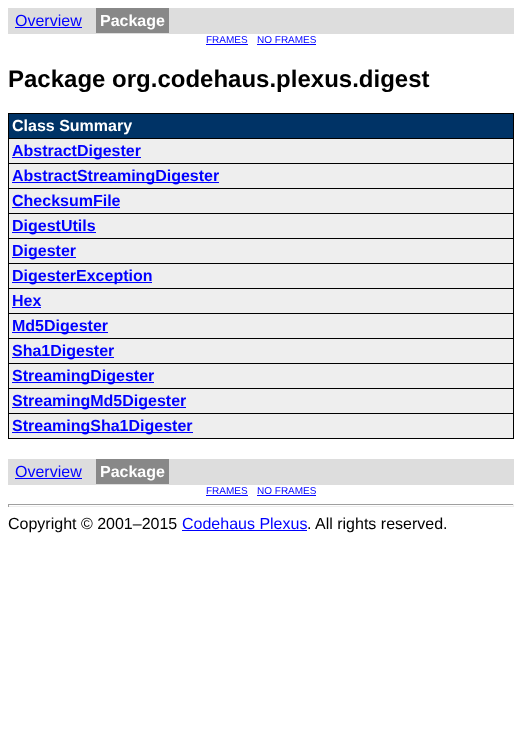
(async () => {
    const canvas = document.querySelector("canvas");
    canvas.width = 522;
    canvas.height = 752;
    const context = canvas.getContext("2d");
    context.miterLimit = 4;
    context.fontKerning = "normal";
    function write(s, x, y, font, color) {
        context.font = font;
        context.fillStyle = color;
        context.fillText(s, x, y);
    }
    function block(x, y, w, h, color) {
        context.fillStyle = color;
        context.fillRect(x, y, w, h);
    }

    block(0, 0, 522, 752, "rgb(255, 255, 255)");
    block(8, 8, 506, 26, "rgb(221, 221, 221)");
    write("Overview", 15, 26, "16px Liberation Sans", "rgb(0, 0, 255)");
    block(15, 27, 67, 1, "rgb(0, 0, 255)");
    block(96, 8, 73, 25, "rgb(136, 136, 136)");
    write("Package", 100, 26, "bold 16px Liberation Sans", "rgb(255, 255, 255)");
    write("FRAMES", 206, 43, "10px Liberation Sans", "rgb(0, 0, 255)");
    block(206, 44, 42, 1, "rgb(0, 0, 255)");
    write("NO FRAMES", 257, 43, "10px Liberation Sans", "rgb(0, 0, 255)");
    block(257, 44, 59, 1, "rgb(0, 0, 255)");
    write("Package org.codehaus.plexus.digest", 8, 87, "bold 24px Liberation Sans", "rgb(0, 0, 0)");
    block(8, 113, 506, 1, "rgb(0, 0, 0)");
    block(513, 113, 1, 326, "rgb(0, 0, 0)");
    block(8, 438, 506, 1, "rgb(0, 0, 0)");
    block(8, 113, 1, 326, "rgb(0, 0, 0)");
    block(9, 114, 504, 24, "rgb(0, 51, 102)");
    write("Class Summary", 12, 131, "bold 16px Liberation Sans", "rgb(255, 255, 255)");
    block(9, 139, 504, 24, "rgb(238, 238, 238)");
    block(8, 138, 506, 1, "rgb(0, 0, 0)");
    block(12, 157, 129, 1, "rgb(0, 0, 255)");
    write("AbstractDigester", 12, 156, "bold 16px Liberation Sans", "rgb(0, 0, 255)");
    block(9, 164, 504, 24, "rgb(238, 238, 238)");
    block(8, 163, 506, 1, "rgb(0, 0, 0)");
    block(12, 182, 207, 1, "rgb(0, 0, 255)");
    write("AbstractStreamingDigester", 12, 181, "bold 16px Liberation Sans", "rgb(0, 0, 255)");
    block(9, 189, 504, 24, "rgb(238, 238, 238)");
    block(8, 188, 506, 1, "rgb(0, 0, 0)");
    write("ChecksumFile", 12, 206, "bold 16px Liberation Sans", "rgb(0, 0, 255)");
    block(12, 207, 108, 1, "rgb(0, 0, 255)");
    block(9, 214, 504, 24, "rgb(238, 238, 238)");
    block(8, 213, 506, 1, "rgb(0, 0, 0)");
    block(12, 232, 84, 1, "rgb(0, 0, 255)");
    write("DigestUtils", 12, 231, "bold 16px Liberation Sans", "rgb(0, 0, 255)");
    block(9, 239, 504, 24, "rgb(238, 238, 238)");
    block(8, 238, 506, 1, "rgb(0, 0, 0)");
    block(12, 257, 64, 1, "rgb(0, 0, 255)");
    write("Digester", 12, 256, "bold 16px Liberation Sans", "rgb(0, 0, 255)");
    block(9, 264, 504, 24, "rgb(238, 238, 238)");
    block(8, 263, 506, 1, "rgb(0, 0, 0)");
    block(12, 282, 140, 1, "rgb(0, 0, 255)");
    write("DigesterException", 12, 281, "bold 16px Liberation Sans", "rgb(0, 0, 255)");
    block(9, 289, 504, 24, "rgb(238, 238, 238)");
    block(8, 288, 506, 1, "rgb(0, 0, 0)");
    write("Hex", 12, 306, "bold 16px Liberation Sans", "rgb(0, 0, 255)");
    block(12, 307, 29, 1, "rgb(0, 0, 255)");
    block(9, 314, 504, 24, "rgb(238, 238, 238)");
    block(8, 313, 506, 1, "rgb(0, 0, 0)");
    block(12, 332, 96, 1, "rgb(0, 0, 255)");
    write("Md5Digester", 12, 331, "bold 16px Liberation Sans", "rgb(0, 0, 255)");
    block(9, 339, 504, 24, "rgb(238, 238, 238)");
    block(8, 338, 506, 1, "rgb(0, 0, 0)");
    block(12, 357, 102, 1, "rgb(0, 0, 255)");
    write("Sha1Digester", 12, 356, "bold 16px Liberation Sans", "rgb(0, 0, 255)");
    block(9, 364, 504, 24, "rgb(238, 238, 238)");
    block(8, 363, 506, 1, "rgb(0, 0, 0)");
    block(12, 382, 142, 1, "rgb(0, 0, 255)");
    write("StreamingDigester", 12, 381, "bold 16px Liberation Sans", "rgb(0, 0, 255)");
    block(9, 389, 504, 24, "rgb(238, 238, 238)");
    block(8, 388, 506, 1, "rgb(0, 0, 0)");
    block(12, 407, 174, 1, "rgb(0, 0, 255)");
    write("StreamingMd5Digester", 12, 406, "bold 16px Liberation Sans", "rgb(0, 0, 255)");
    block(9, 414, 504, 24, "rgb(238, 238, 238)");
    block(8, 413, 506, 1, "rgb(0, 0, 0)");
    block(12, 432, 181, 1, "rgb(0, 0, 255)");
    write("StreamingSha1Digester", 12, 431, "bold 16px Liberation Sans", "rgb(0, 0, 255)");
    block(8, 459, 506, 26, "rgb(221, 221, 221)");
    write("Overview", 15, 477, "16px Liberation Sans", "rgb(0, 0, 255)");
    block(15, 478, 67, 1, "rgb(0, 0, 255)");
    block(96, 459, 73, 25, "rgb(136, 136, 136)");
    write("Package", 100, 477, "bold 16px Liberation Sans", "rgb(255, 255, 255)");
    write("FRAMES", 206, 494, "10px Liberation Sans", "rgb(0, 0, 255)");
    block(206, 495, 42, 1, "rgb(0, 0, 255)");
    write("NO FRAMES", 257, 494, "10px Liberation Sans", "rgb(0, 0, 255)");
    block(257, 495, 59, 1, "rgb(0, 0, 255)");
    block(8, 504, 506, 1, "rgb(159, 159, 159)");
    block(513, 504, 1, 3, "rgb(238, 238, 238)");
    block(8, 506, 506, 1, "rgb(238, 238, 238)");
    block(8, 504, 1, 3, "rgb(159, 159, 159)");
    write("Copyright © 2001–2015", 8, 529, "16px Liberation Sans", "rgb(0, 0, 0)");
    write("Codehaus Plexus", 182, 529, "16px Liberation Sans", "rgb(0, 0, 255)");
    block(182, 530, 125, 1, "rgb(0, 0, 255)");
    write(". All rights reserved.", 307, 529, "16px Liberation Sans", "rgb(0, 0, 0)");
})();
